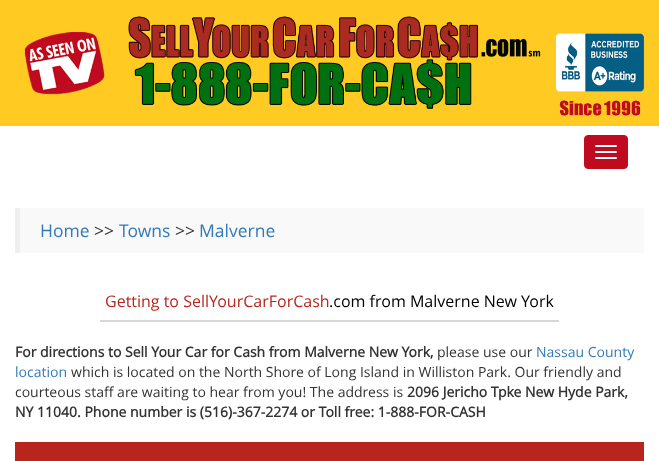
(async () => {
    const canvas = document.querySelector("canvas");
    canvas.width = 659;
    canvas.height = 461;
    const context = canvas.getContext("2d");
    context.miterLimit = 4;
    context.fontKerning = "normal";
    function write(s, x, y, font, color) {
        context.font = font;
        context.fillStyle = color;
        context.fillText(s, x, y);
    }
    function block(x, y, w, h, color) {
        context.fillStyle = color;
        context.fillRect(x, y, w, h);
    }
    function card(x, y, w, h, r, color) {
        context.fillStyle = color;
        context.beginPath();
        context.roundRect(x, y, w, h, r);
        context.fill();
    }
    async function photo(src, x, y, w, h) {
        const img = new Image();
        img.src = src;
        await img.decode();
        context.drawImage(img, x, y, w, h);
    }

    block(0, 0, 659, 461, "rgb(255, 255, 255)");
    block(0, 0, 659, 126, "rgb(255, 202, 34)");
    await photo("media/1.png", 24, 16, 621, 100);
    context.fillStyle = "rgb(191, 10, 31)";
    context.beginPath();
    context.roundRect(584.5, 135.5, 43, 33, 3.5);
    context.fill();
    context.strokeStyle = "rgb(191, 10, 31)";
    context.stroke();
    card(595, 145, 22, 2, 1, "rgb(255, 255, 255)");
    card(595, 151, 22, 2, 1, "rgb(255, 255, 255)");
    card(595, 157, 22, 2, 1, "rgb(255, 255, 255)");
    block(20, 208, 624, 45, "rgb(249, 249, 249)");
    block(15, 208, 5, 45, "rgb(238, 238, 238)");
    write("Home", 40, 237, "17.5px Open Sans", "rgb(51, 122, 183)");
    write(">>", 94, 237, "17.5px Open Sans", "rgb(51, 51, 51)");
    write("Towns", 119, 237, "17.5px Open Sans", "rgb(51, 122, 183)");
    write(">>", 175, 237, "17.5px Open Sans", "rgb(51, 51, 51)");
    write("Malverne", 199, 237, "17.5px Open Sans", "rgb(51, 122, 183)");
    block(100, 320, 459, 2, "rgb(214, 214, 214)");
    write("Getting to SellYourCarForCash", 105, 307, "16px Open Sans", "rgb(183, 37, 29)");
    write(".com from Malverne New York", 329, 307, "16px Open Sans", "rgb(0, 0, 0)");
    write("For directions to Sell Your Car for Cash from Malverne New York,", 15, 357, "bold 14px Open Sans", "rgb(51, 51, 51)");
    write("please use our", 437, 357, "14px Open Sans", "rgb(51, 51, 51)");
    write("Nassau County", 536, 357, "14px Open Sans", "rgb(51, 122, 183)");
    write("location", 15, 377, "14px Open Sans", "rgb(51, 122, 183)");
    write("which is located on the North Shore of Long Island in Williston Park. Our friendly and", 71, 377, "14px Open Sans", "rgb(51, 51, 51)");
    write("courteous staff are waiting to hear from you! The address is", 15, 397, "14px Open Sans", "rgb(51, 51, 51)");
    write("2096 Jericho Tpke New Hyde Park,", 407, 397, "bold 14px Open Sans", "rgb(51, 51, 51)");
    write("NY 11040. Phone number is (516)-367-2274 or Toll free: 1-888-FOR-CASH", 15, 417, "bold 14px Open Sans", "rgb(51, 51, 51)");
    block(15, 442, 629, 19, "rgb(183, 37, 29)");
})();
